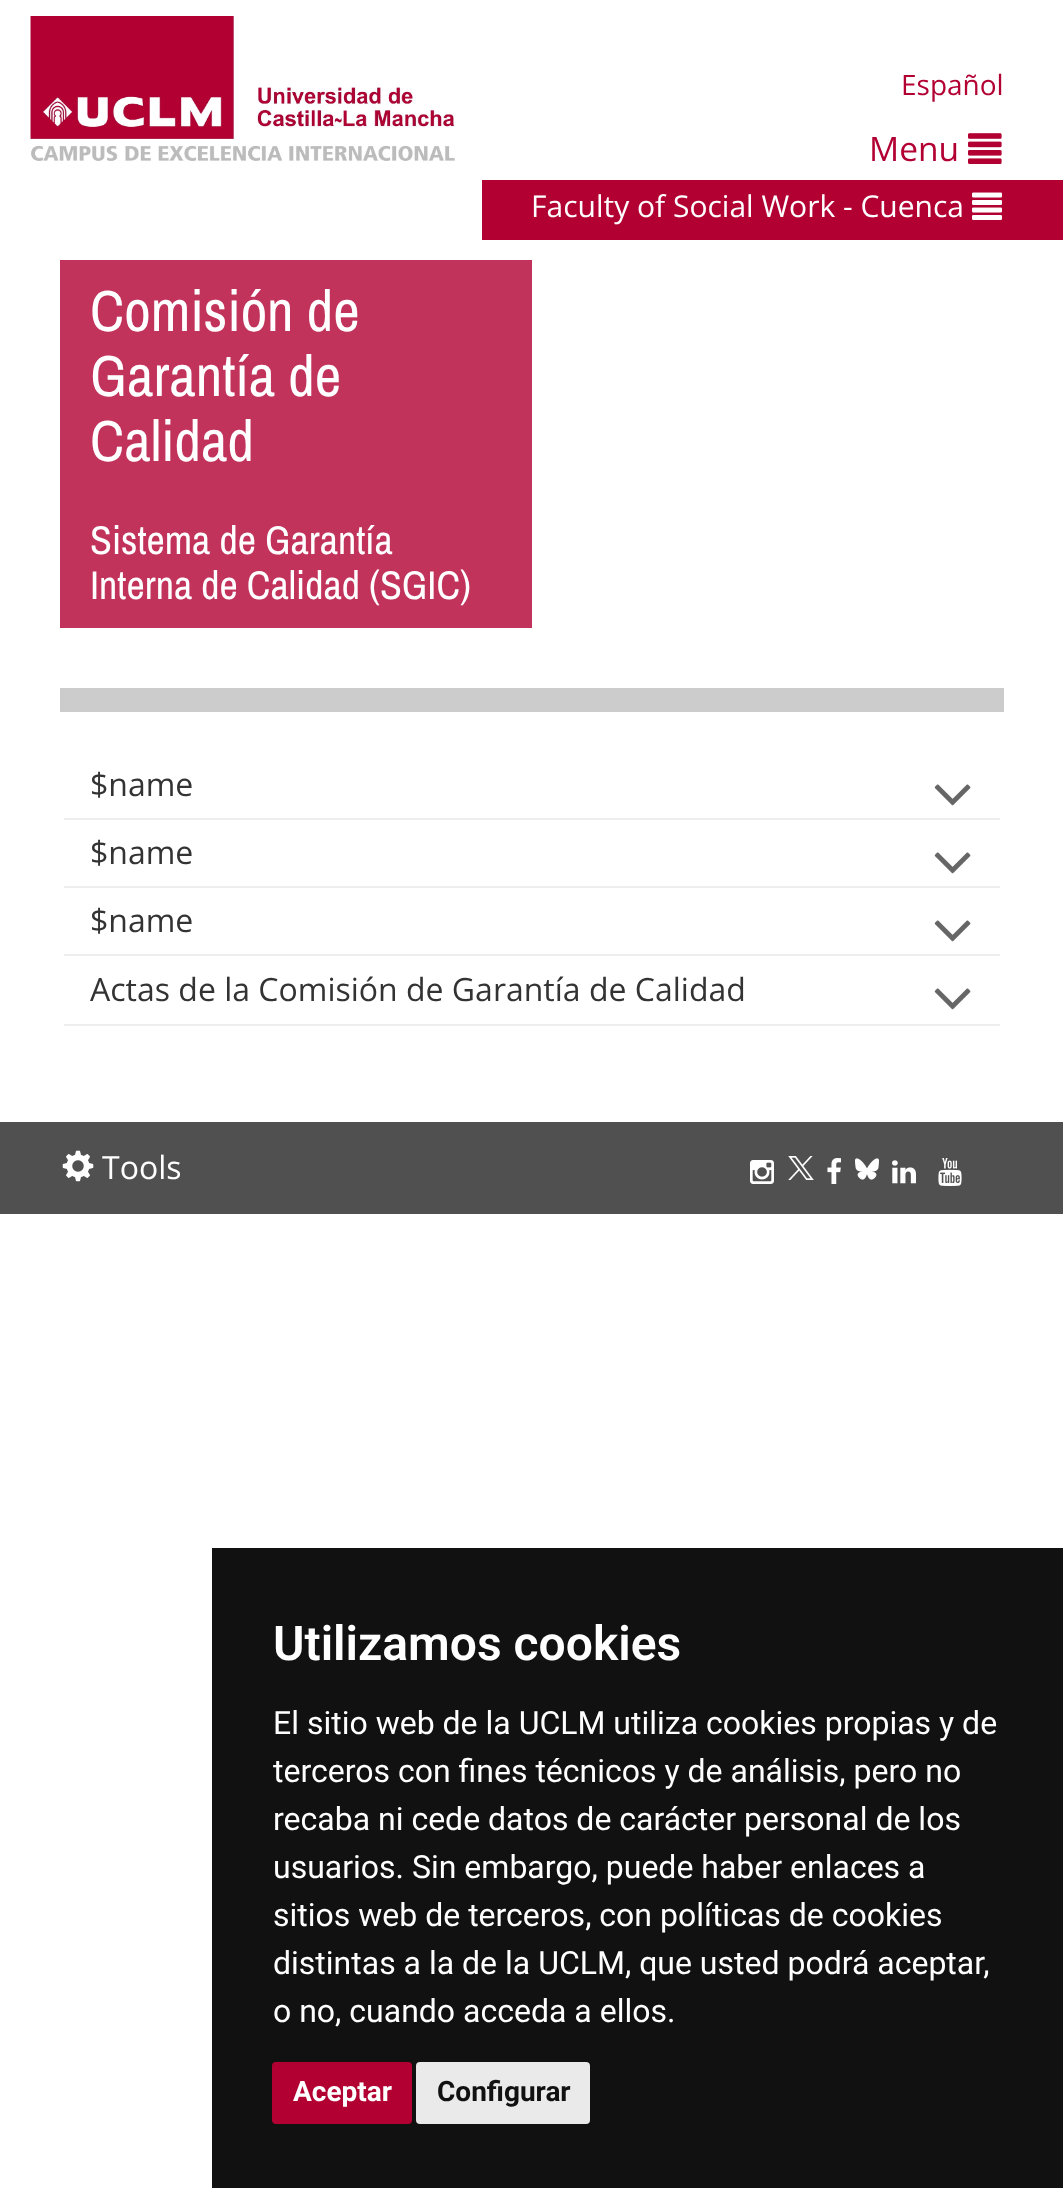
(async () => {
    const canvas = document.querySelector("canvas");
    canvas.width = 1063;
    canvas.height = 2188;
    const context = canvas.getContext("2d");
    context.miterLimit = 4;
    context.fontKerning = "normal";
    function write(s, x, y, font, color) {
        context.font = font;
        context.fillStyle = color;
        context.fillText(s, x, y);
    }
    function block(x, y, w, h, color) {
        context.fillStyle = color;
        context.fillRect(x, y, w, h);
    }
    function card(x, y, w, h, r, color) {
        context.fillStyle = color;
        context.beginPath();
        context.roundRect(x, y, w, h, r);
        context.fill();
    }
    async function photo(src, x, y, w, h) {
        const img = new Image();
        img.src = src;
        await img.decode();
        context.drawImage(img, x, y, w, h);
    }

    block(0, 0, 1063, 2188, "rgb(255, 255, 255)");
    await photo("media/1.png", 30, 16, 425, 145);
    write("Español", 901, 95, "28px Open Sans", "rgb(179, 0, 51)");
    write("Menu", 869, 161, "33.5px Open Sans", "rgb(179, 0, 51)");
    await photo("media/2.png", 968, 133, 34, 31);
    block(482, 180, 581, 60, "rgb(179, 0, 51)");
    write("Faculty of Social Work - Cuenca", 531, 217, "30px Open Sans", "rgb(255, 255, 255)");
    await photo("media/3.png", 972, 192, 30, 28);
    block(60, 260, 472, 368, "rgb(194, 51, 92)");
    write("Comisión de", 90, 331, "58px Archivo Narrow", "rgb(255, 255, 255)");
    write("Garantía de", 90, 396, "58px Archivo Narrow", "rgb(255, 255, 255)");
    write("Calidad", 90, 461, "58px Archivo Narrow", "rgb(255, 255, 255)");
    write("Sistema de Garantía", 90, 554, "40px Archivo Narrow", "rgb(255, 255, 255)");
    write("Interna de Calidad (SGIC)", 90, 599, "40px Archivo Narrow", "rgb(255, 255, 255)");
    block(60, 688, 944, 24, "rgb(204, 204, 204)");
    block(64, 818, 936, 2, "rgb(238, 238, 238)");
    write("$name", 90, 796, "32px Open Sans", "rgb(51, 51, 51)");
    await photo("media/4.png", 934, 784, 37, 22);
    block(64, 886, 936, 2, "rgb(238, 238, 238)");
    write("$name", 90, 864, "32px Open Sans", "rgb(51, 51, 51)");
    await photo("media/4.png", 934, 852, 37, 22);
    block(64, 954, 936, 2, "rgb(238, 238, 238)");
    write("$name", 90, 932, "32px Open Sans", "rgb(51, 51, 51)");
    await photo("media/4.png", 934, 920, 37, 22);
    block(64, 1024, 936, 2, "rgb(238, 238, 238)");
    write("Actas de la Comisión de Garantía de Calidad", 90, 1001, "32px Open Sans", "rgb(51, 51, 51)");
    await photo("media/4.png", 934, 988, 37, 22);
    block(0, 1122, 1063, 92, "rgb(80, 80, 80)");
    await photo("media/5.png", 62, 1150, 32, 32);
    write("Tools", 102, 1179, "32px Open Sans", "rgb(255, 255, 255)");
    await photo("media/6.png", 750, 1160, 24, 24);
    await photo("media/7.png", 788, 1156, 26, 24);
    await photo("media/8.png", 827, 1158, 14, 26);
    await photo("media/9.png", 855, 1158, 24, 22);
    await photo("media/10.png", 892, 1160, 24, 24);
    await photo("media/11.png", 938, 1158, 24, 28);
    block(212, 1548, 851, 640, "rgb(17, 17, 17)");
    write("Utilizamos cookies", 273, 1660, "600 48px Roboto", "rgb(255, 255, 255)");
    write("El sitio web de la UCLM utiliza cookies propias y de", 273, 1734, "32px Roboto", "rgb(255, 255, 255)");
    write("terceros con fines técnicos y de análisis, pero no", 273, 1782, "32px Roboto", "rgb(255, 255, 255)");
    write("recaba ni cede datos de carácter personal de los", 273, 1830, "32px Roboto", "rgb(255, 255, 255)");
    write("usuarios. Sin embargo, puede haber enlaces a", 273, 1878, "32px Roboto", "rgb(255, 255, 255)");
    write("sitios web de terceros, con políticas de cookies", 273, 1926, "32px Roboto", "rgb(255, 255, 255)");
    write("distintas a la de la UCLM, que usted podrá aceptar,", 273, 1974, "32px Roboto", "rgb(255, 255, 255)");
    write("o no, cuando acceda a ellos.", 273, 2022, "32px Roboto", "rgb(255, 255, 255)");
    card(272, 2062, 140, 62, 4, "rgb(179, 0, 51)");
    write("Aceptar", 293, 2101, "bold 28px Roboto", "rgb(255, 255, 255)");
    card(416, 2062, 174, 62, 4, "rgb(234, 234, 234)");
    write("Configurar", 437, 2101, "bold 28px Roboto", "rgb(17, 17, 17)");
})();
